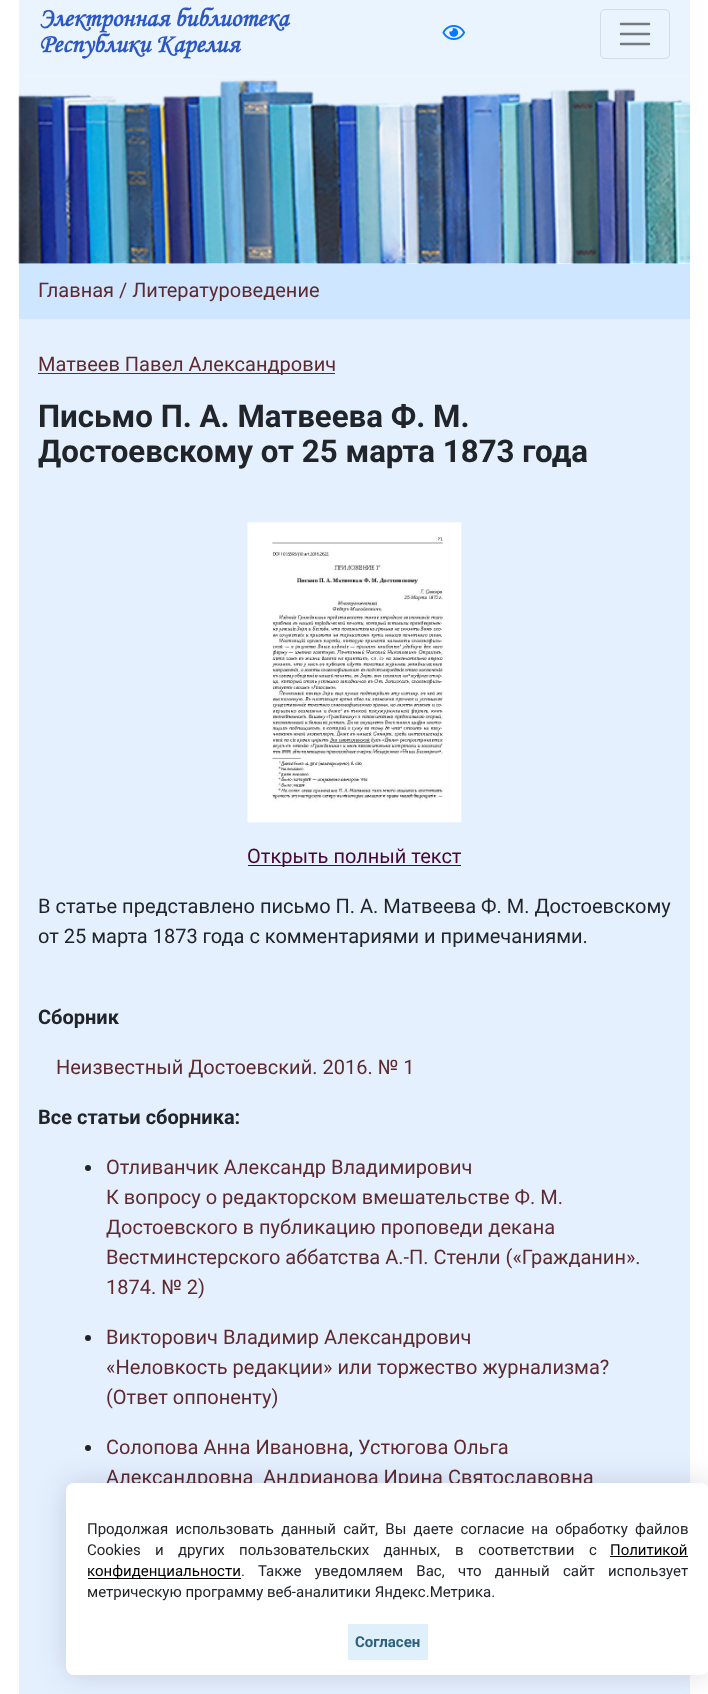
(async () => {
    const canvas = document.querySelector("canvas");
    canvas.width = 708;
    canvas.height = 1694;
    const context = canvas.getContext("2d");
    context.miterLimit = 4;
    context.fontKerning = "normal";
    function write(s, x, y, font, color) {
        context.font = font;
        context.fillStyle = color;
        context.fillText(s, x, y);
    }
    function block(x, y, w, h, color) {
        context.fillStyle = color;
        context.fillRect(x, y, w, h);
    }
    function card(x, y, w, h, r, color) {
        context.fillStyle = color;
        context.beginPath();
        context.roundRect(x, y, w, h, r);
        context.fill();
    }
    async function photo(src, x, y, w, h) {
        const img = new Image();
        img.src = src;
        await img.decode();
        context.drawImage(img, x, y, w, h);
    }

    block(0, 0, 708, 1694, "rgb(255, 255, 255)");
    block(19, 0, 671, 76, "rgb(234, 244, 254)");
    write("Электронная библиотека", 39, 26, "italic bold 26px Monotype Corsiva", "rgb(44, 88, 197)");
    write("Республики Карелия", 39, 52, "italic bold 26px Monotype Corsiva", "rgb(44, 88, 197)");
    await photo("media/1.png", 442, 25, 23, 15);
    context.beginPath();
    context.roundRect(600.5, 9.5, 69, 49, 4.5);
    context.strokeStyle = "rgb(211, 220, 229)";
    context.stroke();
    context.beginPath();
    context.moveTo(621, 24);
    context.lineTo(649, 24);
    context.moveTo(621, 34);
    context.lineTo(649, 34);
    context.moveTo(621, 44);
    context.lineTo(649, 44);
    context.strokeStyle = "rgb(117, 122, 127)";
    context.lineWidth = 2.5;
    context.lineCap = "round";
    context.stroke();
    await photo("media/2.png", 18, 76, 672, 188);
    block(19, 264, 671, 55, "rgb(206, 230, 255)");
    write("Главная / Литературоведение", 38, 297, "20px Roboto", "rgb(93, 43, 47)");
    block(19, 319, 671, 1375, "rgb(229, 240, 255)");
    block(38, 373, 297, 1, "rgb(93, 43, 47)");
    write("Матвеев Павел Александрович", 38, 371, "20px Roboto", "rgb(93, 43, 47)");
    write("Письмо П. А. Матвеева Ф. М.", 38, 427, "bold 31.25px Roboto", "rgb(33, 37, 41)");
    write("Достоевскому от 25 марта 1873 года", 38, 462, "bold 31.25px Roboto", "rgb(33, 37, 41)");
    await photo("media/3.png", 247, 522, 215, 301);
    block(248, 865, 213, 1, "rgb(71, 7, 54)");
    write("Открыть полный текст", 247, 863, "20px Roboto", "rgb(71, 7, 54)");
    write("В статье представлено письмо П. А. Матвеева Ф. М. Достоевскому", 38, 913, "20px Roboto", "rgb(33, 37, 41)");
    write("от 25 марта 1873 года с комментариями и примечаниями.", 38, 943, "20px Roboto", "rgb(33, 37, 41)");
    write("Сборник", 38, 1024, "bold 20px Roboto", "rgb(33, 37, 41)");
    write("Неизвестный Достоевский. 2016. № 1", 56, 1074, "20px Roboto", "rgb(93, 43, 47)");
    write("Все статьи сборника:", 38, 1124, "bold 20px Roboto", "rgb(33, 37, 41)");
    context.beginPath();
    context.arc(88, 1168, 3, 0, Math.PI * 2);
    context.fill();
    write("Отливанчик Александр Владимирович", 106, 1174, "20px Roboto", "rgb(93, 43, 47)");
    write("К вопросу о редакторском вмешательстве Ф. М.", 106, 1204, "20px Roboto", "rgb(93, 43, 47)");
    write("Достоевского в публикацию проповеди декана", 106, 1234, "20px Roboto", "rgb(93, 43, 47)");
    write("Вестминстерского аббатства А.-П. Стенли («Гражданин».", 106, 1264, "20px Roboto", "rgb(93, 43, 47)");
    write("1874. № 2)", 106, 1294, "20px Roboto", "rgb(93, 43, 47)");
    context.fillStyle = "rgb(33, 37, 41)";
    context.beginPath();
    context.arc(88, 1338, 3, 0, Math.PI * 2);
    context.fill();
    write("Викторович Владимир Александрович", 106, 1344, "20px Roboto", "rgb(93, 43, 47)");
    write("«Неловкость редакции» или торжество журнализма?", 106, 1374, "20px Roboto", "rgb(93, 43, 47)");
    write("(Ответ оппоненту)", 106, 1404, "20px Roboto", "rgb(93, 43, 47)");
    context.fillStyle = "rgb(33, 37, 41)";
    context.beginPath();
    context.arc(88, 1448, 3, 0, Math.PI * 2);
    context.fill();
    write("Солопова Анна Ивановна", 106, 1454, "20px Roboto", "rgb(93, 43, 47)");
    write(",", 349, 1454, "20px Roboto", "rgb(33, 37, 41)");
    write("Устюгова Ольга", 358, 1454, "20px Roboto", "rgb(93, 43, 47)");
    write("Александровна", 106, 1484, "20px Roboto", "rgb(93, 43, 47)");
    write("Андрианова Ирина Святославовна", 263, 1484, "20px Roboto", "rgb(93, 43, 47)");
    context.fillStyle = "rgba(5, 0, 31, 0.15)";
    context.filter = "blur(15px)";
    context.beginPath();
    context.roundRect(66, 1483, 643, 192, 8);
    context.fill();
    context.filter = "none";
    card(66, 1483, 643, 192, 8, "rgb(255, 255, 255)");
    context.wordSpacing = "3.5px";
    write("Продолжая использовать данный сайт, Вы даете согласие на обработку файлов", 87, 1534, "15px Roboto", "rgb(33, 37, 41)");
    context.wordSpacing = "10.5px";
    write("Cookies и других пользовательских данных,", 87, 1555, "15px Roboto", "rgb(33, 37, 41)");
    context.wordSpacing = "11px";
    write("в соответствии с", 455, 1555, "15px Roboto", "rgb(33, 37, 41)");
    context.wordSpacing = "0px";
    write("Политикой", 610, 1555, "15px Roboto", "rgb(0, 0, 0)");
    block(610, 1556, 78, 1, "rgb(0, 0, 0)");
    block(88, 1578, 153, 1, "rgb(0, 0, 0)");
    write("конфиденциальности", 87, 1576, "15px Roboto", "rgb(0, 0, 0)");
    context.wordSpacing = "9.5px";
    write(". Также уведомляем Вас,", 241, 1576, "15px Roboto", "rgb(33, 37, 41)");
    write("что данный сайт использует", 458, 1576, "15px Roboto", "rgb(33, 37, 41)");
    context.wordSpacing = "0px";
    write("метрическую программу веб-аналитики Яндекс.Метрика.", 87, 1597, "15px Roboto", "rgb(33, 37, 41)");
    block(348, 1624, 80, 36, "rgb(224, 240, 250)");
    write("Согласен", 355, 1647, "bold 15px Roboto", "rgb(45, 96, 125)");
})();
